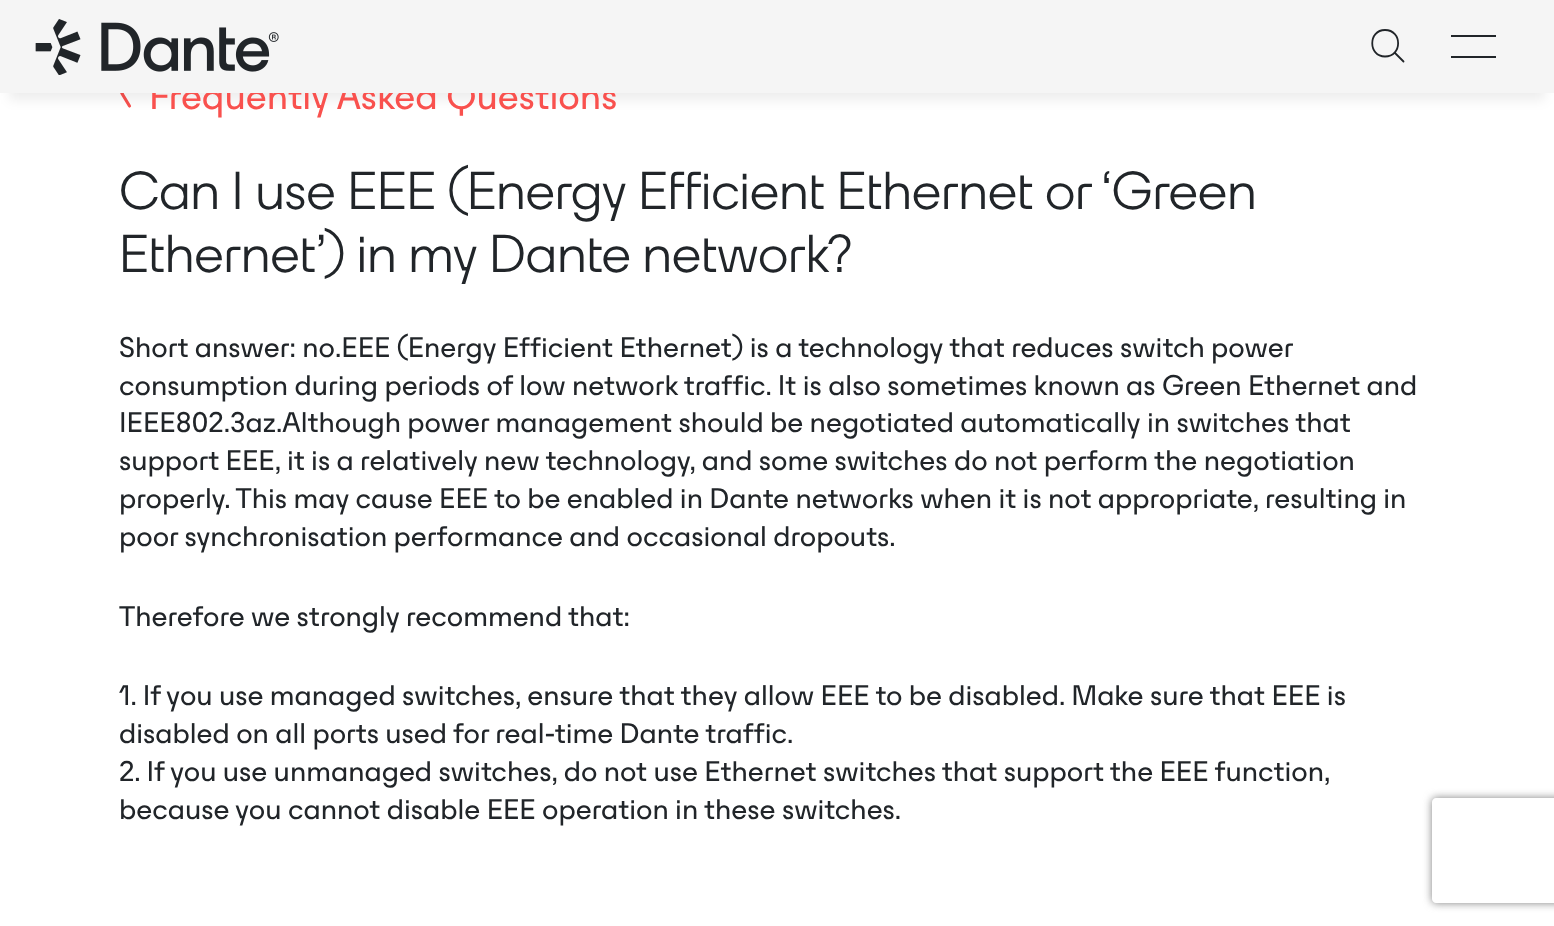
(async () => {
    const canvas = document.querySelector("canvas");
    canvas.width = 1554;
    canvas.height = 926;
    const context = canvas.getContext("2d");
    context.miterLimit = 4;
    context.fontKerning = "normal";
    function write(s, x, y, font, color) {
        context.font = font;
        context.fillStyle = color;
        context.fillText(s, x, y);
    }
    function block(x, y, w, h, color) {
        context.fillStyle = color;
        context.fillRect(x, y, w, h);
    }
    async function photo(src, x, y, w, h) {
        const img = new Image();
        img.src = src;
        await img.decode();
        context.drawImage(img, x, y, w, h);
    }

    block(0, 0, 1554, 926, "rgb(255, 255, 255)");
    context.beginPath();
    context.moveTo(129.5, 106);
    context.lineTo(122, 93.5);
    context.lineTo(129.5, 81.5);
    context.strokeStyle = "rgb(249, 81, 78)";
    context.lineWidth = 3.1;
    context.lineCap = "round";
    context.stroke();
    context.fillStyle = "rgba(0, 0, 0, 0.07)";
    context.filter = "blur(6px)";
    context.beginPath();
    context.rect(9, 25, 1536, 75);
    context.fill();
    context.filter = "none";
    write("Frequently Asked Questions", 149, 109, "36.75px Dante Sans", "rgb(249, 81, 78)");
    block(0, 0, 1554, 93, "rgb(245, 245, 245)");
    await photo("media/1.png", 35, 19, 244, 56);
    context.beginPath();
    context.moveTo(1385, 56.5);
    context.bezierCurveTo(1402.5, 56.5, 1402.5, 30, 1385, 30);
    context.bezierCurveTo(1368, 30, 1368, 56.5, 1385, 56.5);
    context.closePath();
    context.moveTo(1403.5, 61.5);
    context.lineTo(1395, 53);
    context.strokeStyle = "rgb(33, 37, 41)";
    context.lineWidth = 1.8;
    context.lineJoin = "round";
    context.stroke();
    block(1451, 35, 45, 2, "rgb(33, 37, 41)");
    block(1451, 56, 45, 2, "rgb(33, 37, 41)");
    context.letterSpacing = "-0.25px";
    write("Can I use EEE (Energy Efficient Ethernet or ‘Green", 119, 209, "300 52.5px Dante Sans", "rgb(33, 37, 41)");
    write("Ethernet’) in my Dante network?", 119, 272, "300 52.5px Dante Sans", "rgb(33, 37, 41)");
    context.letterSpacing = "0px";
    write("Short answer: no.EEE (Energy Efficient Ethernet) is a technology that reduces switch power", 119, 357, "28px Dante Sans", "rgb(33, 37, 41)");
    write("consumption during periods of low network traffic. It is also sometimes known as Green Ethernet and", 119, 395, "28px Dante Sans", "rgb(33, 37, 41)");
    write("IEEE802.3az.Although power management should be negotiated automatically in switches that", 119, 432, "28px Dante Sans", "rgb(33, 37, 41)");
    write("support EEE, it is a relatively new technology, and some switches do not perform the negotiation", 119, 470, "28px Dante Sans", "rgb(33, 37, 41)");
    write("properly. This may cause EEE to be enabled in Dante networks when it is not appropriate, resulting in", 119, 508, "28px Dante Sans", "rgb(33, 37, 41)");
    write("poor synchronisation performance and occasional dropouts.", 119, 546, "28px Dante Sans", "rgb(33, 37, 41)");
    write("Therefore we strongly recommend that:", 119, 626, "28px Dante Sans", "rgb(33, 37, 41)");
    write("1. If you use managed switches, ensure that they allow EEE to be disabled. Make sure that EEE is", 119, 705, "28px Dante Sans", "rgb(33, 37, 41)");
    write("disabled on all ports used for real-time Dante traffic.", 119, 743, "28px Dante Sans", "rgb(33, 37, 41)");
    write("2. If you use unmanaged switches, do not use Ethernet switches that support the EEE function,", 119, 781, "28px Dante Sans", "rgb(33, 37, 41)");
    write("because you cannot disable EEE operation in these switches.", 119, 819, "28px Dante Sans", "rgb(33, 37, 41)");
    context.save();
    context.beginPath();
    context.moveTo(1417, 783);
    context.lineTo(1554, 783);
    context.lineTo(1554, 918);
    context.lineTo(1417, 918);
    context.closePath();
    context.moveTo(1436, 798);
    context.lineTo(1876, 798);
    context.bezierCurveTo(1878, 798, 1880, 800, 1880, 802);
    context.lineTo(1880, 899);
    context.bezierCurveTo(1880, 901, 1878, 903, 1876, 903);
    context.lineTo(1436, 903);
    context.bezierCurveTo(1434, 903, 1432, 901, 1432, 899);
    context.lineTo(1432, 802);
    context.bezierCurveTo(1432, 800, 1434, 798, 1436, 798);
    context.closePath();
    context.clip("evenodd");
    context.fillStyle = "rgb(128, 128, 128)";
    context.filter = "blur(4.5px)";
    context.beginPath();
    context.roundRect(1432, 798, 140, 105, 4);
    context.fill();
    context.filter = "none";
    context.restore();
})();
